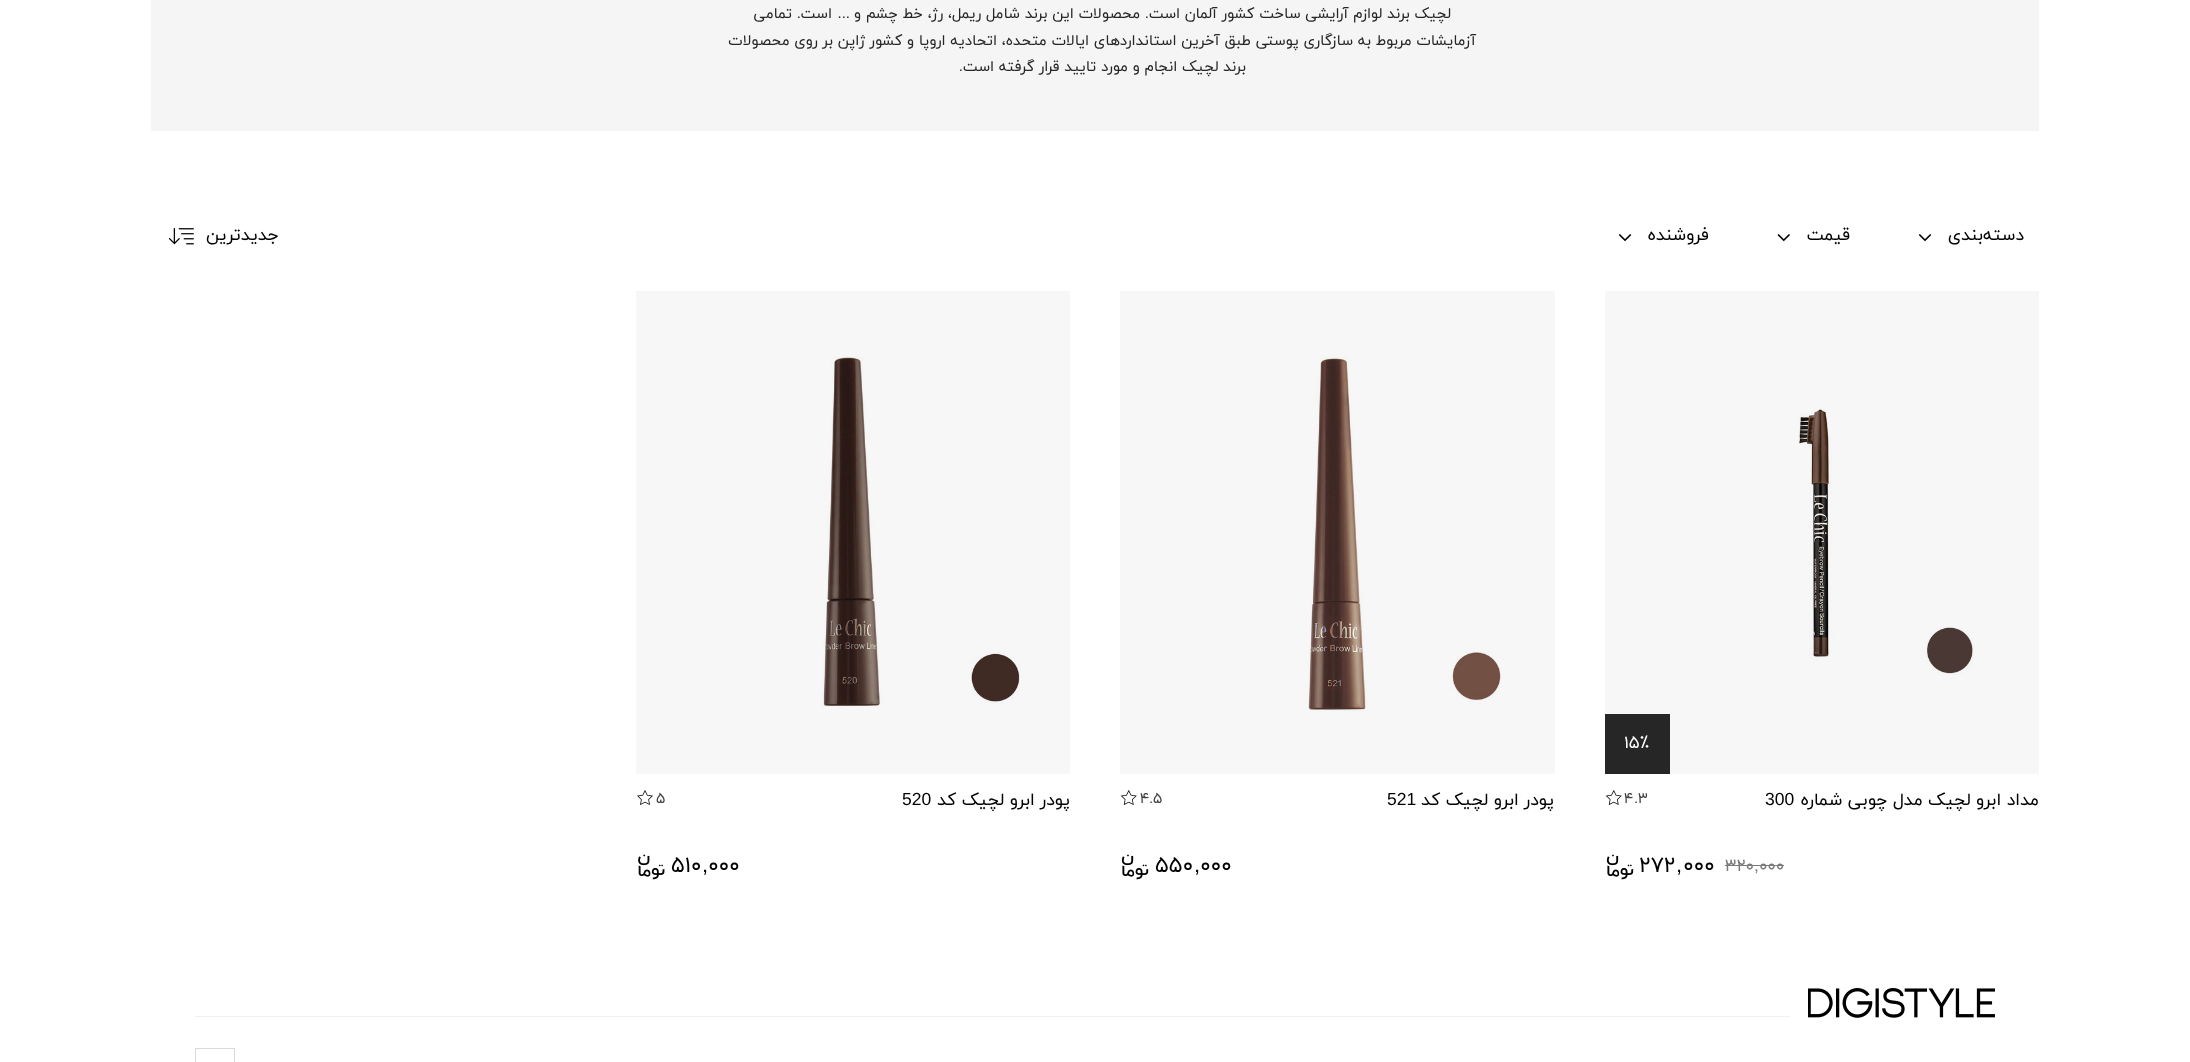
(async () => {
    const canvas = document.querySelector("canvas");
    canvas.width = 2190;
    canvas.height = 1062;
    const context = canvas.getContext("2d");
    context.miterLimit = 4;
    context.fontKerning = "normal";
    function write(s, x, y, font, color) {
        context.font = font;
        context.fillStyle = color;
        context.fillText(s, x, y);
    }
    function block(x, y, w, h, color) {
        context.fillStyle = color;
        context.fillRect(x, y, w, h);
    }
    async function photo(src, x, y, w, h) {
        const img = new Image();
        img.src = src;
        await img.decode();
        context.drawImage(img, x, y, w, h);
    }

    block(0, 0, 2190, 1062, "rgb(255, 255, 255)");
    block(636, 291, 434, 483, "rgb(247, 247, 247)");
    block(1120, 291, 435, 483, "rgb(247, 247, 247)");
    block(1605, 291, 434, 483, "rgb(247, 247, 247)");
    block(151, 0, 1888, 131, "rgb(245, 245, 245)");
    context.direction = "rtl";
    write("لچیک برند لوازم آرایشی ساخت کشور آلمان است", 1451, 18, "15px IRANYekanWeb", "rgb(38, 38, 38)");
    write(".", 1149, 18, "15px Liberation Sans", "rgb(38, 38, 38)");
    write("محصولات این برند شامل ریمل، رژ، خط چشم و", 1140, 18, "15px IRANYekanWeb", "rgb(38, 38, 38)");
    write("...", 850, 18, "15px Liberation Sans", "rgb(38, 38, 38)");
    write("است", 832, 18, "15px IRANYekanWeb", "rgb(38, 38, 38)");
    write(".", 801, 18, "15px Liberation Sans", "rgb(38, 38, 38)");
    write("تمامی", 792, 18, "15px IRANYekanWeb", "rgb(38, 38, 38)");
    write("آزمایشات مربوط به سازگاری پوستی طبق آخرین استانداردهای ایالات متحده، اتحادیه اروپا و کشور ژاپن بر روی محصولات", 1476, 45, "15px IRANYekanWeb", "rgb(38, 38, 38)");
    write("برند لچیک انجام و مورد تایید قرار گرفته است", 1246, 71, "15px IRANYekanWeb", "rgb(38, 38, 38)");
    write(".", 963, 71, "15px Liberation Sans", "rgb(38, 38, 38)");
    write("دسته‌بندی", 2024, 240, "17.5px IRANYekanWeb", "rgb(0, 0, 0)");
    await photo("media/1.png", 1918, 234, 14, 8);
    write("قیمت", 1850, 240, "17.5px IRANYekanWeb", "rgb(0, 0, 0)");
    await photo("media/2.png", 1777, 234, 13, 8);
    write("فروشنده", 1709, 240, "17.5px IRANYekanWeb", "rgb(0, 0, 0)");
    await photo("media/1.png", 1618, 234, 14, 8);
    write("جدیدترین", 279, 240, "17.5px IRANYekanWeb", "rgb(0, 0, 0)");
    await photo("media/3.png", 168, 228, 26, 17);
    await photo("media/4.png", 1798, 408, 176, 267);
    block(1605, 714, 65, 60, "rgb(38, 38, 38)");
    context.direction = "ltr";
    write("۱۵٪", 1624, 748, "17.5px IRANYekanWeb", "rgb(255, 255, 255)");
    context.direction = "rtl";
    write("مداد ابرو لچیک مدل چوبی شماره", 2039, 805, "17.5px IRANYekanWeb", "rgb(0, 0, 0)");
    context.direction = "ltr";
    write("300", 1765, 805, "17.5px Liberation Sans", "rgb(0, 0, 0)");
    write("۳", 1638, 803, "15px IRANYekanWeb", "rgb(67, 67, 67)");
    write(".", 1634, 803, "15px Liberation Sans", "rgb(67, 67, 67)");
    write("۴", 1624, 803, "15px IRANYekanWeb", "rgb(67, 67, 67)");
    await photo("media/5.png", 1605, 790, 17, 15);
    write("۰۰۰", 1759, 871, "17.5px IRANYekanWeb", "rgb(123, 123, 123)");
    write("۳۲۰", 1725, 871, "17.5px IRANYekanWeb", "rgb(123, 123, 123)");
    block(1725, 865, 59, 1, "rgb(123, 123, 123)");
    write(",", 1754, 871, "17.5px Liberation Sans", "rgb(123, 123, 123)");
    write("۰۰۰", 1683, 872, "22px IRANYekanWeb", "rgb(0, 0, 0)");
    write("۲۷۲", 1639, 872, "22px IRANYekanWeb", "rgb(0, 0, 0)");
    await photo("media/6.png", 1606, 854, 28, 26);
    write(",", 1676, 872, "22px Liberation Sans", "rgb(0, 0, 0)");
    await photo("media/7.png", 1308, 356, 193, 357);
    context.direction = "rtl";
    write("پودر ابرو لچیک کد", 1554, 805, "17.5px IRANYekanWeb", "rgb(0, 0, 0)");
    context.direction = "ltr";
    write("521", 1387, 805, "17.5px Liberation Sans", "rgb(0, 0, 0)");
    write("۵", 1153, 803, "15px IRANYekanWeb", "rgb(67, 67, 67)");
    write(".", 1149, 803, "15px Liberation Sans", "rgb(67, 67, 67)");
    write("۴", 1140, 803, "15px IRANYekanWeb", "rgb(67, 67, 67)");
    await photo("media/5.png", 1120, 790, 17, 15);
    write("۰۰۰", 1200, 872, "22px IRANYekanWeb", "rgb(0, 0, 0)");
    write("۵۵۰", 1155, 872, "22px IRANYekanWeb", "rgb(0, 0, 0)");
    await photo("media/6.png", 1121, 854, 28, 26);
    write(",", 1194, 872, "22px Liberation Sans", "rgb(0, 0, 0)");
    await photo("media/8.png", 822, 356, 198, 351);
    context.direction = "rtl";
    write("پودر ابرو لچیک کد", 1070, 805, "17.5px IRANYekanWeb", "rgb(0, 0, 0)");
    context.direction = "ltr";
    write("520", 902, 805, "17.5px Liberation Sans", "rgb(0, 0, 0)");
    write("۵", 656, 803, "15px IRANYekanWeb", "rgb(67, 67, 67)");
    await photo("media/9.png", 637, 790, 16, 15);
    write("۰۰۰", 708, 872, "22px IRANYekanWeb", "rgb(0, 0, 0)");
    write("۵۱۰", 671, 872, "22px IRANYekanWeb", "rgb(0, 0, 0)");
    await photo("media/10.png", 638, 854, 27, 26);
    write(",", 702, 872, "22px Liberation Sans", "rgb(0, 0, 0)");
    await photo("media/11.png", 1808, 988, 187, 30);
    block(195, 1016, 1595, 1, "rgb(240, 240, 241)");
    context.strokeStyle = "rgb(217, 217, 217)";
    context.strokeRect(195.5, 1048.5, 39, 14);
})();
